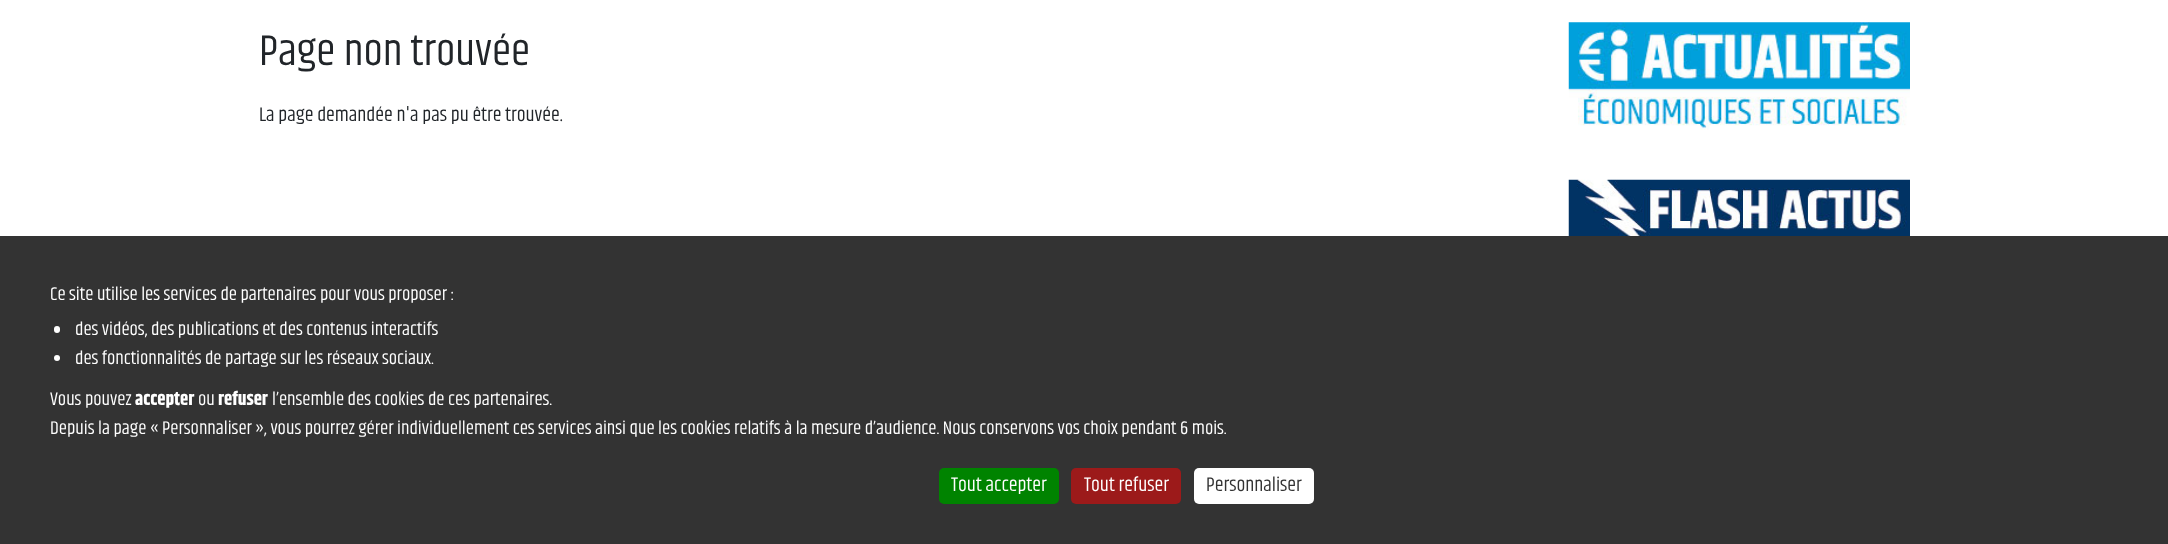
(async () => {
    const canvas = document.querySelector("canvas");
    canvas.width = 2168;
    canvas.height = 544;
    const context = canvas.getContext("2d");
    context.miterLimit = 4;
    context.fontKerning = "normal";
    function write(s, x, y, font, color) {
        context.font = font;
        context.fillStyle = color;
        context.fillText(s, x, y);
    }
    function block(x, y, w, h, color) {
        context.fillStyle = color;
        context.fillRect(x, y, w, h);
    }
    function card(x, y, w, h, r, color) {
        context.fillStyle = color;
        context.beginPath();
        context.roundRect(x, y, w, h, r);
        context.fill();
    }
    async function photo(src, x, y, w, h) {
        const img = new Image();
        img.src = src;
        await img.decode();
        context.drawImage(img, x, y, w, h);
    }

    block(0, 0, 2168, 544, "rgb(255, 255, 255)");
    write("Page non trouvée", 259, 65, "43.75px Khand", "rgb(33, 37, 41)");
    write("La page demandée n'a pas pu être trouvée.", 259, 121, "20px Khand", "rgb(33, 37, 41)");
    await photo("media/1.png", 1568, 22, 342, 108);
    await photo("media/2.png", 1568, 179, 342, 57);
    block(0, 236, 2168, 308, "rgb(51, 51, 51)");
    write("Ce site utilise les services de partenaires pour vous proposer :", 50, 300, "18.75px Khand", "rgb(255, 255, 255)");
    card(54, 326, 6, 7, 3, "rgb(255, 255, 255)");
    write("des vidéos, des publications et des contenus interactifs", 75, 335, "18.75px Khand", "rgb(255, 255, 255)");
    context.beginPath();
    context.arc(57, 358, 3, 0, Math.PI * 2);
    context.fill();
    write("des fonctionnalités de partage sur les réseaux sociaux.", 75, 364, "18.75px Khand", "rgb(255, 255, 255)");
    write("Vous pouvez", 50, 405, "18.75px Khand", "rgb(255, 255, 255)");
    write("accepter", 135, 405, "bold 18.75px Khand", "rgb(255, 255, 255)");
    write("ou", 198, 405, "18.75px Khand", "rgb(255, 255, 255)");
    write("refuser", 218, 405, "bold 18.75px Khand", "rgb(255, 255, 255)");
    write("l’ensemble des cookies de ces partenaires.", 272, 405, "18.75px Khand", "rgb(255, 255, 255)");
    write("Depuis la page « Personnaliser », vous pourrez gérer individuellement ces services ainsi que les cookies relatifs à la mesure d’audience. Nous conservons vos choix pendant 6 mois.", 50, 434, "18.75px Khand", "rgb(255, 255, 255)");
    card(939, 468, 120, 36, 5, "rgb(0, 131, 0)");
    write("Tout accepter", 951, 491, "20px Khand", "rgb(255, 255, 255)");
    card(1071, 468, 110, 36, 5, "rgb(156, 26, 26)");
    write("Tout refuser", 1084, 491, "20px Khand", "rgb(255, 255, 255)");
    card(1194, 468, 120, 36, 5, "rgb(255, 255, 255)");
    write("Personnaliser", 1206, 491, "20px Khand", "rgb(51, 51, 51)");
})();
